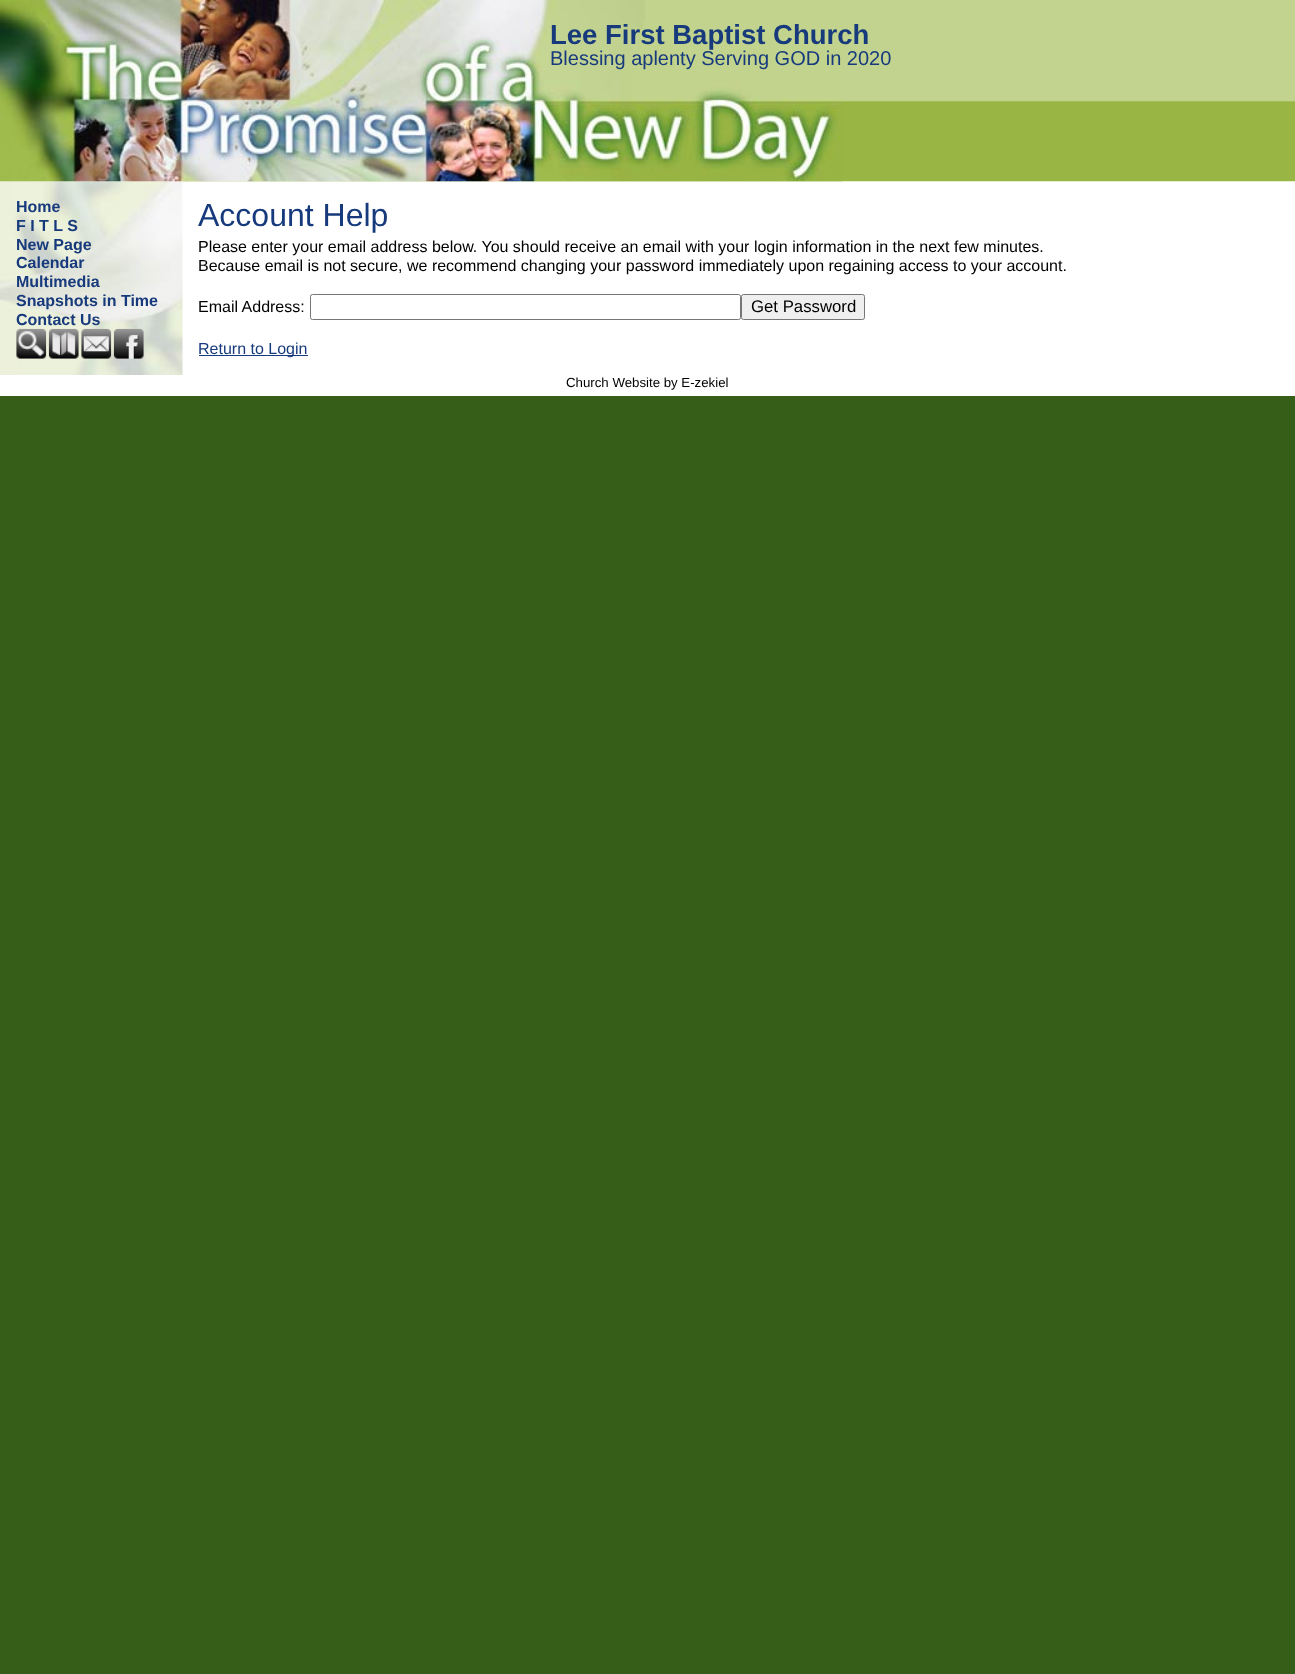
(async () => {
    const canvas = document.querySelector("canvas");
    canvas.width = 1295;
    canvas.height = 1674;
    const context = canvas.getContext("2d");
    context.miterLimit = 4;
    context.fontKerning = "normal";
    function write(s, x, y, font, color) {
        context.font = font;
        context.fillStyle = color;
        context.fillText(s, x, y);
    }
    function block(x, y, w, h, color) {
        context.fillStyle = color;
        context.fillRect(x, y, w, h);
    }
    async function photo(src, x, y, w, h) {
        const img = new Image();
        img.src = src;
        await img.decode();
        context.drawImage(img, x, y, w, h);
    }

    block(0, 0, 1295, 1674, "rgb(54, 94, 24)");
    block(0, 181, 1295, 215, "rgb(255, 255, 255)");
    await photo("media/1.png", 0, 0, 1295, 182);
    await photo("media/3.png", 0, 181, 183, 194);
    await photo("media/2.png", 0, 0, 843, 182);
    write("Lee First Baptist Church", 550, 44, "bold 27.5px Liberation Sans", "rgb(23, 58, 124)");
    write("Blessing aplenty Serving GOD in 2020", 550, 65, "20px Liberation Sans", "rgb(23, 58, 124)");
    write("Home", 16, 212, "bold 16px Liberation Sans", "rgb(23, 58, 124)");
    write("F I T L S", 16, 231, "bold 16px Liberation Sans", "rgb(23, 58, 124)");
    write("New Page", 16, 250, "bold 16px Liberation Sans", "rgb(23, 58, 124)");
    write("Calendar", 16, 268, "bold 16px Liberation Sans", "rgb(23, 58, 124)");
    write("Multimedia", 16, 287, "bold 16px Liberation Sans", "rgb(23, 58, 124)");
    write("Snapshots in Time", 16, 306, "bold 16px Liberation Sans", "rgb(23, 58, 124)");
    write("Contact Us", 16, 325, "bold 16px Liberation Sans", "rgb(23, 58, 124)");
    await photo("media/4.png", 16, 328, 31, 31);
    await photo("media/5.png", 48, 328, 31, 31);
    await photo("media/6.png", 81, 328, 31, 31);
    await photo("media/7.png", 113, 328, 31, 31);
    write("Account Help", 198, 226, "32px Liberation Sans", "rgb(23, 58, 124)");
    write("Please enter your email address below. You should receive an email with your login information in the next few minutes.", 198, 252, "16px Liberation Sans", "rgb(0, 0, 0)");
    write("Because email is not secure, we recommend changing your password immediately upon regaining access to your account.", 198, 271, "16px Liberation Sans", "rgb(0, 0, 0)");
    write("Email Address:", 198, 312, "16px Liberation Sans", "rgb(0, 0, 0)");
    context.beginPath();
    context.roundRect(310.5, 294.5, 430, 25, 2);
    context.strokeStyle = "rgb(118, 118, 118)";
    context.stroke();
    context.fillStyle = "rgb(239, 239, 239)";
    context.beginPath();
    context.roundRect(741.5, 294.5, 123, 25, 2);
    context.fill();
    context.stroke();
    write("Get Password", 751, 312, "16.75px Liberation Sans", "rgb(0, 0, 0)");
    block(199, 355, 109, 1, "rgb(23, 58, 124)");
    write("Return to Login", 198, 354, "16px Liberation Sans", "rgb(23, 58, 124)");
    write("Church Website by E-zekiel", 566, 387, "13.25px Liberation Sans", "rgb(0, 0, 0)");
})();
